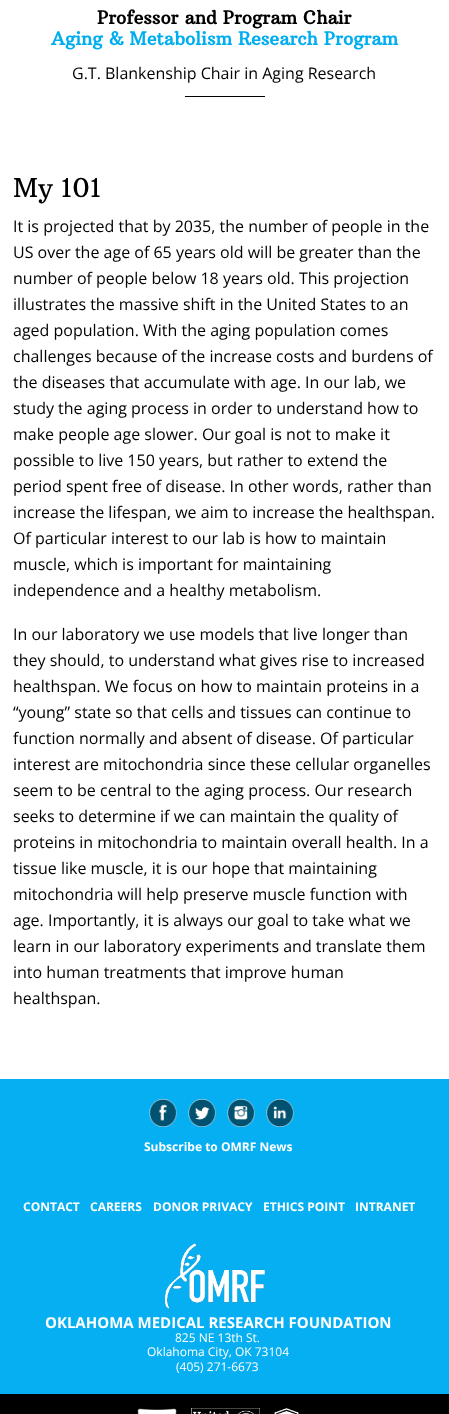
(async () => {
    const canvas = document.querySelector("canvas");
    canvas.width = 449;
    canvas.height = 1414;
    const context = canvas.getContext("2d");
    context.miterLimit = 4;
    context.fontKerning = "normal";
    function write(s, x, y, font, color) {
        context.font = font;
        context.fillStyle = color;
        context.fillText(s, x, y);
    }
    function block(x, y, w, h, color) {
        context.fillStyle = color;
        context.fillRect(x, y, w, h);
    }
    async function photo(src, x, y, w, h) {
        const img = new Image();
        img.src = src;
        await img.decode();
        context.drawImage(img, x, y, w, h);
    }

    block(0, 0, 449, 1414, "rgb(5, 175, 242)");
    block(0, 0, 449, 1079, "rgb(255, 255, 255)");
    write("Professor and Program Chair", 97, 24, "bold 18px Arbutus Slab", "rgb(0, 0, 0)");
    write("Aging & Metabolism Research Program", 51, 45, "bold 18px Arbutus Slab", "rgb(0, 174, 239)");
    write("G.T. Blankenship Chair in Aging Research", 72, 79, "16px Open Sans", "rgb(0, 0, 0)");
    block(185, 96, 80, 1, "rgb(0, 0, 0)");
    write("My 101", 13, 197, "26px Arbutus Slab", "rgb(0, 0, 0)");
    write("It is projected that by 2035, the number of people in the", 13, 232, "16px Open Sans", "rgb(0, 0, 0)");
    write("US over the age of 65 years old will be greater than the", 13, 258, "16px Open Sans", "rgb(0, 0, 0)");
    write("number of people below 18 years old. This projection", 13, 284, "16px Open Sans", "rgb(0, 0, 0)");
    write("illustrates the massive shift in the United States to an", 13, 310, "16px Open Sans", "rgb(0, 0, 0)");
    write("aged population. With the aging population comes", 13, 336, "16px Open Sans", "rgb(0, 0, 0)");
    write("challenges because of the increase costs and burdens of", 13, 362, "16px Open Sans", "rgb(0, 0, 0)");
    write("the diseases that accumulate with age. In our lab, we", 13, 388, "16px Open Sans", "rgb(0, 0, 0)");
    write("study the aging process in order to understand how to", 13, 414, "16px Open Sans", "rgb(0, 0, 0)");
    write("make people age slower. Our goal is not to make it", 13, 440, "16px Open Sans", "rgb(0, 0, 0)");
    write("possible to live 150 years, but rather to extend the", 13, 466, "16px Open Sans", "rgb(0, 0, 0)");
    write("period spent free of disease. In other words, rather than", 13, 492, "16px Open Sans", "rgb(0, 0, 0)");
    write("increase the lifespan, we aim to increase the healthspan.", 13, 518, "16px Open Sans", "rgb(0, 0, 0)");
    write("Of particular interest to our lab is how to maintain", 13, 544, "16px Open Sans", "rgb(0, 0, 0)");
    write("muscle, which is important for maintaining", 13, 570, "16px Open Sans", "rgb(0, 0, 0)");
    write("independence and a healthy metabolism.", 13, 596, "16px Open Sans", "rgb(0, 0, 0)");
    write("In our laboratory we use models that live longer than", 13, 640, "16px Open Sans", "rgb(0, 0, 0)");
    write("they should, to understand what gives rise to increased", 13, 666, "16px Open Sans", "rgb(0, 0, 0)");
    write("healthspan. We focus on how to maintain proteins in a", 13, 692, "16px Open Sans", "rgb(0, 0, 0)");
    write("“young” state so that cells and tissues can continue to", 13, 718, "16px Open Sans", "rgb(0, 0, 0)");
    write("function normally and absent of disease. Of particular", 13, 744, "16px Open Sans", "rgb(0, 0, 0)");
    write("interest are mitochondria since these cellular organelles", 13, 770, "16px Open Sans", "rgb(0, 0, 0)");
    write("seem to be central to the aging process. Our research", 13, 796, "16px Open Sans", "rgb(0, 0, 0)");
    write("seeks to determine if we can maintain the quality of", 13, 822, "16px Open Sans", "rgb(0, 0, 0)");
    write("proteins in mitochondria to maintain overall health. In a", 13, 848, "16px Open Sans", "rgb(0, 0, 0)");
    write("tissue like muscle, it is our hope that maintaining", 13, 874, "16px Open Sans", "rgb(0, 0, 0)");
    write("mitochondria will help preserve muscle function with", 13, 900, "16px Open Sans", "rgb(0, 0, 0)");
    write("age. Importantly, it is always our goal to take what we", 13, 926, "16px Open Sans", "rgb(0, 0, 0)");
    write("learn in our laboratory experiments and translate them", 13, 952, "16px Open Sans", "rgb(0, 0, 0)");
    write("into human treatments that improve human", 13, 978, "16px Open Sans", "rgb(0, 0, 0)");
    write("healthspan.", 13, 1004, "16px Open Sans", "rgb(0, 0, 0)");
    await photo("media/1.png", 149, 1099, 28, 28);
    await photo("media/2.png", 188, 1099, 28, 28);
    await photo("media/3.png", 227, 1099, 28, 28);
    await photo("media/4.png", 266, 1099, 28, 28);
    write("Subscribe to OMRF News", 144, 1151, "bold 12px Open Sans", "rgb(255, 255, 255)");
    write("CONTACT", 23, 1211, "bold 12px Open Sans", "rgb(255, 255, 255)");
    write("CAREERS", 90, 1211, "bold 12px Open Sans", "rgb(255, 255, 255)");
    write("DONOR PRIVACY", 153, 1211, "bold 12px Open Sans", "rgb(255, 255, 255)");
    write("ETHICS POINT", 263, 1211, "bold 12px Open Sans", "rgb(255, 255, 255)");
    write("INTRANET", 355, 1211, "bold 12px Open Sans", "rgb(255, 255, 255)");
    await photo("media/5.png", 165, 1243, 100, 66);
    write("OKLAHOMA MEDICAL RESEARCH FOUNDATION", 45, 1328, "bold 15px Open Sans", "rgb(255, 255, 255)");
    write("825 NE 13th St.", 175, 1342, "12px Open Sans", "rgb(255, 255, 255)");
    write("Oklahoma City, OK 73104", 147, 1356, "12px Open Sans", "rgb(255, 255, 255)");
    write("(405) 271-6673", 176, 1371, "12px Open Sans", "rgb(255, 255, 255)");
    block(0, 1394, 449, 20, "rgb(0, 0, 0)");
    await photo("media/6.png", 137, 1408, 40, 6);
    await photo("media/7.png", 191, 1408, 69, 6);
    await photo("media/8.png", 274, 1408, 25, 6);
})();
